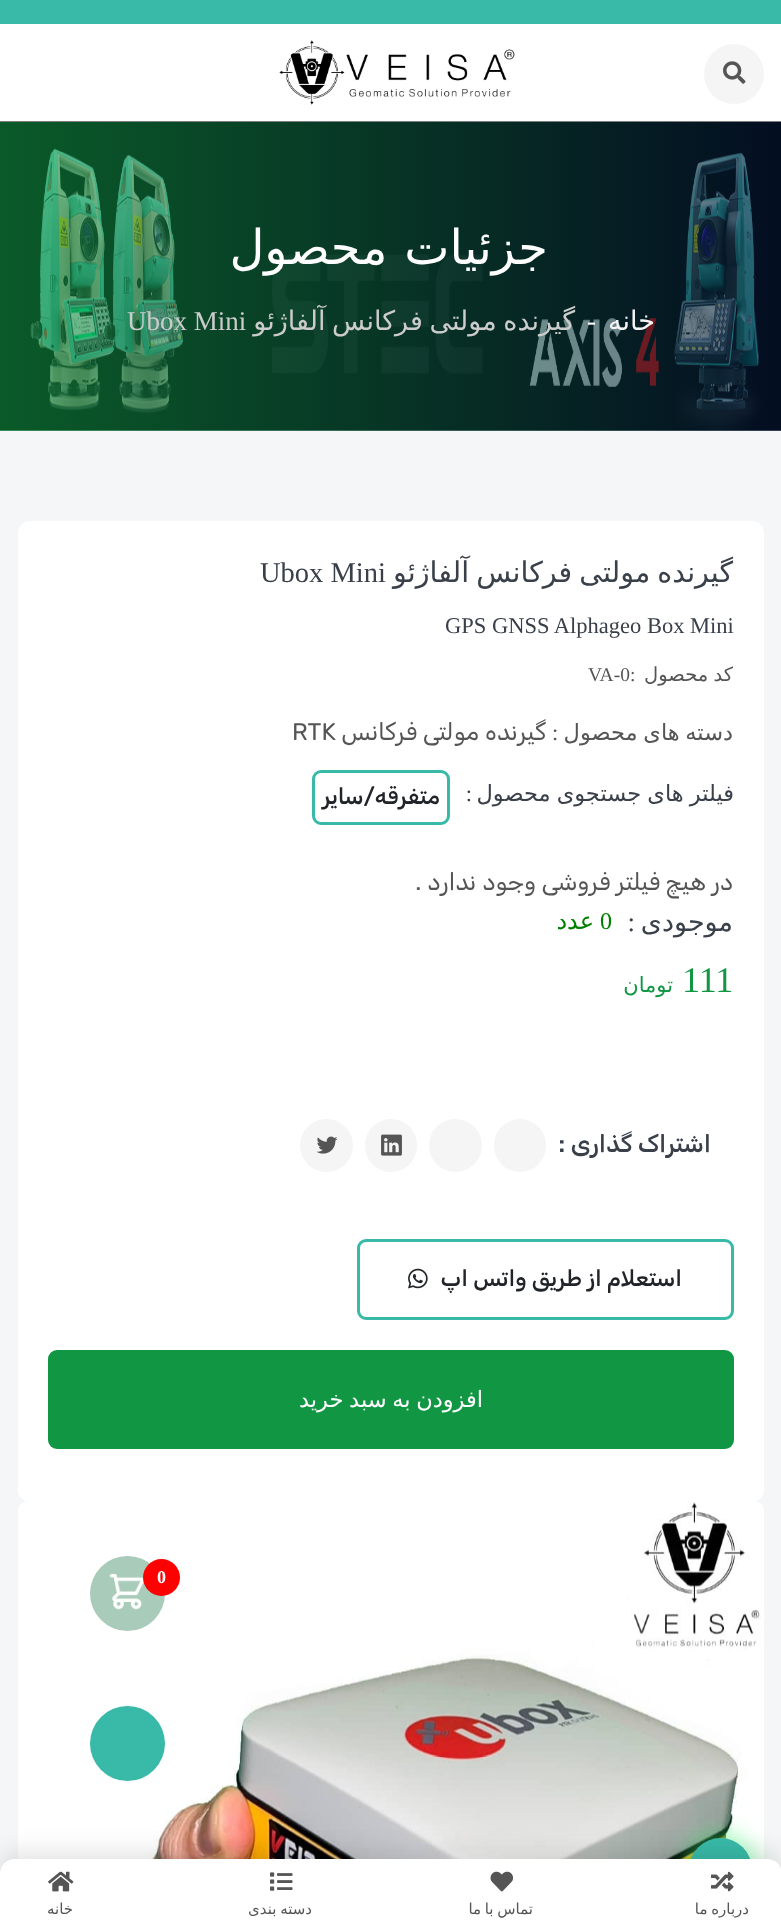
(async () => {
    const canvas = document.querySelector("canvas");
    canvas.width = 781;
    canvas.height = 1930;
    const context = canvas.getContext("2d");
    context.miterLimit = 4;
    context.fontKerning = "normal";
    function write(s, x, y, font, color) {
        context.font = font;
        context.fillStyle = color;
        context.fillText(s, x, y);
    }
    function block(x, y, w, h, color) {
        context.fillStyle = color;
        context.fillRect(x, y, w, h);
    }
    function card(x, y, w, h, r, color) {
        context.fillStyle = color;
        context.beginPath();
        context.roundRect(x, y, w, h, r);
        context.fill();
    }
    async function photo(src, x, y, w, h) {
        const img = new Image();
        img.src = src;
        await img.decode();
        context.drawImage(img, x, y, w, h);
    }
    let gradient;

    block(0, 0, 781, 1930, "rgb(245, 246, 247)");
    block(0, 0, 781, 24, "rgb(57, 186, 168)");
    block(0, 24, 781, 98, "rgb(255, 255, 255)");
    context.fillStyle = "rgb(245, 245, 245)";
    context.beginPath();
    context.arc(734, 74, 30, 0, Math.PI * 2);
    context.fill();
    await photo("media/1.png", 723, 61, 23, 23);
    await photo("media/2.png", 279, 40, 236, 65);
    await photo("media/3.png", 0, 121, 781, 310);
    gradient = context.createLinearGradient(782, 276, 0, 276);
    gradient.addColorStop(0, "rgba(6, 23, 56, 0.6)");
    gradient.addColorStop(1, "rgba(17, 151, 68, 0.6)");
    context.fillStyle = gradient;
    context.fillRect(0, 122, 781, 309);
    context.letterSpacing = "-0.5px";
    context.wordSpacing = "2px";
    context.direction = "rtl";
    write("جزئیات محصول", 548, 264, "48px DejaVu Sans", "rgb(255, 255, 255)");
    context.letterSpacing = "0px";
    context.wordSpacing = "0px";
    write("خانه", 655, 330, "27px DejaVu Sans", "rgb(245, 245, 245)");
    context.direction = "ltr";
    write("-", 587, 330, "27px Liberation Serif", "rgb(255, 255, 255)");
    context.wordSpacing = "-2px";
    context.direction = "rtl";
    write("گیرنده مولتی فرکانس آلفاژئو", 575, 330, "27px DejaVu Sans", "rgb(204, 204, 204)");
    context.wordSpacing = "0px";
    context.direction = "ltr";
    write("Ubox Mini", 127, 330, "27px Liberation Serif", "rgb(204, 204, 204)");
    card(18, 521, 746, 981, 12, "rgb(255, 255, 255)");
    context.wordSpacing = "-2px";
    context.direction = "rtl";
    write("گیرنده مولتی فرکانس آلفاژئو", 733, 582, "28.5px DejaVu Sans", "rgb(57, 64, 74)");
    context.wordSpacing = "0px";
    context.direction = "ltr";
    write("Ubox Mini", 260, 582, "28.5px Liberation Serif", "rgb(57, 64, 74)");
    write("GPS GNSS Alphageo Box Mini", 445, 633, "22.5px Liberation Serif", "rgb(57, 64, 74)");
    context.wordSpacing = "-1px";
    context.direction = "rtl";
    write("کد محصول", 733, 681, "19.5px DejaVu Sans", "rgb(85, 85, 85)");
    context.wordSpacing = "0px";
    context.direction = "ltr";
    write(":", 630, 681, "19.5px Liberation Serif", "rgb(85, 85, 85)");
    write("VA-0", 588, 681, "19.5px Liberation Serif", "rgb(85, 85, 85)");
    context.wordSpacing = "-1.5px";
    context.direction = "rtl";
    write("دسته های محصول", 733, 740, "22.5px DejaVu Sans", "rgb(85, 85, 85)");
    context.wordSpacing = "0px";
    context.direction = "ltr";
    write(":", 552, 740, "22.5px Liberation Serif", "rgb(85, 85, 85)");
    context.direction = "rtl";
    write("گیرنده مولتی فرکانس", 546, 740, "24px Rubik", "rgb(85, 85, 85)");
    context.direction = "ltr";
    write("RTK", 292, 740, "24px Rubik", "rgb(85, 85, 85)");
    context.wordSpacing = "-1px";
    context.direction = "rtl";
    write("فیلتر های جستجوی محصول", 734, 801, "22.5px DejaVu Sans", "rgb(57, 64, 74)");
    context.wordSpacing = "0px";
    write(":", 472, 801, "22.5px Liberation Serif", "rgb(57, 64, 74)");
    context.beginPath();
    context.roundRect(313.5, 771.5, 135, 52, 7.5);
    context.strokeStyle = "rgb(57, 186, 168)";
    context.lineWidth = 3;
    context.stroke();
    write("متفرقه/سایر", 440, 804, "500 22.5px Rubik", "rgb(33, 37, 41)");
    write("در هیچ", 733, 890, "24px Rubik", "rgb(85, 85, 85)");
    write("فیلتر فروشی", 660, 890, "24px Rubik", "rgb(85, 85, 85)");
    write("وجود ندارد .", 536, 890, "24px Rubik", "rgb(85, 85, 85)");
    write("موجودی", 733, 931, "27px DejaVu Sans", "rgb(57, 64, 74)");
    write(":", 635, 931, "27px Liberation Serif", "rgb(57, 64, 74)");
    context.direction = "ltr";
    write("0", 600, 929, "24px Liberation Serif", "rgb(0, 128, 0)");
    context.direction = "rtl";
    write("عدد", 594, 929, "24px DejaVu Sans", "rgb(0, 128, 0)");
    context.direction = "ltr";
    write("111", 682, 992, "36px Liberation Serif", "rgb(17, 151, 68)");
    context.direction = "rtl";
    write("تومان", 673, 992, "21px DejaVu Sans", "rgb(17, 151, 68)");
    write("اشتراک گذاری :", 711, 1152, "500 24px Rubik", "rgb(57, 64, 74)");
    card(494, 1119, 52, 53, 26, "rgb(245, 245, 245)");
    context.beginPath();
    context.arc(455.5, 1145.5, 26.5, 0, Math.PI * 2);
    context.fill();
    card(365, 1119, 52, 53, 26, "rgb(245, 245, 245)");
    await photo("media/4.png", 381, 1134, 21, 22);
    context.beginPath();
    context.arc(326.5, 1145.5, 26.5, 0, Math.PI * 2);
    context.fill();
    await photo("media/5.png", 316, 1136, 22, 18);
    context.beginPath();
    context.roundRect(358.5, 1240.5, 374, 78, 7.5);
    context.stroke();
    write("استعلام از طریق واتس اپ", 682, 1286, "500 22.5px Rubik", "rgb(33, 37, 41)");
    await photo("media/6.png", 408, 1268, 20, 21);
    card(48, 1350, 686, 99, 9, "rgb(17, 151, 68)");
    context.wordSpacing = "-1.5px";
    write("افزودن به سبد خرید", 483, 1407, "22.5px DejaVu Sans", "rgb(255, 255, 255)");
    card(18, 1502, 746, 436, 8, "rgb(255, 255, 255)");
    await photo("media/7.png", 137, 1502, 624, 357);
    context.fillStyle = "rgb(169, 203, 186)";
    context.beginPath();
    context.arc(127.5, 1593.5, 37.5, 0, Math.PI * 2);
    context.fill();
    await photo("media/8.png", 109, 1573, 35, 37);
    context.fillStyle = "rgb(255, 0, 0)";
    context.beginPath();
    context.arc(161.5, 1577.5, 18.5, 0, Math.PI * 2);
    context.fill();
    context.wordSpacing = "0px";
    context.direction = "ltr";
    write("0", 157, 1583, "bold 18px Liberation Serif", "rgb(255, 255, 255)");
    context.fillStyle = "rgb(57, 186, 168)";
    context.beginPath();
    context.arc(127.5, 1743.5, 37.5, 0, Math.PI * 2);
    context.fill();
    context.fillStyle = "rgba(71, 254, 126, 0.5)";
    context.filter = "blur(11px)";
    context.beginPath();
    context.roundRect(684, 1833, 72, 72, 36);
    context.fill();
    context.filter = "none";
    context.fillStyle = "rgb(57, 186, 168)";
    context.beginPath();
    context.arc(720.5, 1869.5, 31.5, 0, Math.PI * 2);
    context.fill();
    context.fillStyle = "rgba(0, 0, 0, 0.1)";
    context.filter = "blur(11px)";
    context.beginPath();
    context.roundRect(0, 1851, 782, 72, 15);
    context.fill();
    context.filter = "none";
    context.fillStyle = "rgb(255, 255, 255)";
    context.beginPath();
    context.moveTo(15, 1859);
    context.lineTo(767, 1859);
    context.bezierCurveTo(775.5, 1859, 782, 1865.5, 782, 1874);
    context.lineTo(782, 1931);
    context.lineTo(0, 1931);
    context.lineTo(0, 1874);
    context.bezierCurveTo(0, 1865.5, 6.5, 1859, 15, 1859);
    context.closePath();
    context.fill();
    await photo("media/9.png", 711, 1871, 23, 21);
    context.wordSpacing = "-1px";
    context.direction = "rtl";
    write("درباره ما", 749, 1914, "15px DejaVu Sans", "rgb(85, 85, 85)");
    await photo("media/10.png", 490, 1871, 23, 21);
    write("تماس با ما", 533, 1914, "15px DejaVu Sans", "rgb(85, 85, 85)");
    await photo("media/11.png", 270, 1872, 23, 19);
    write("دسته بندی", 312, 1914, "15px DejaVu Sans", "rgb(85, 85, 85)");
    await photo("media/12.png", 48, 1871, 26, 21);
    context.wordSpacing = "0px";
    write("خانه", 73, 1914, "15px DejaVu Sans", "rgb(85, 85, 85)");
})();
